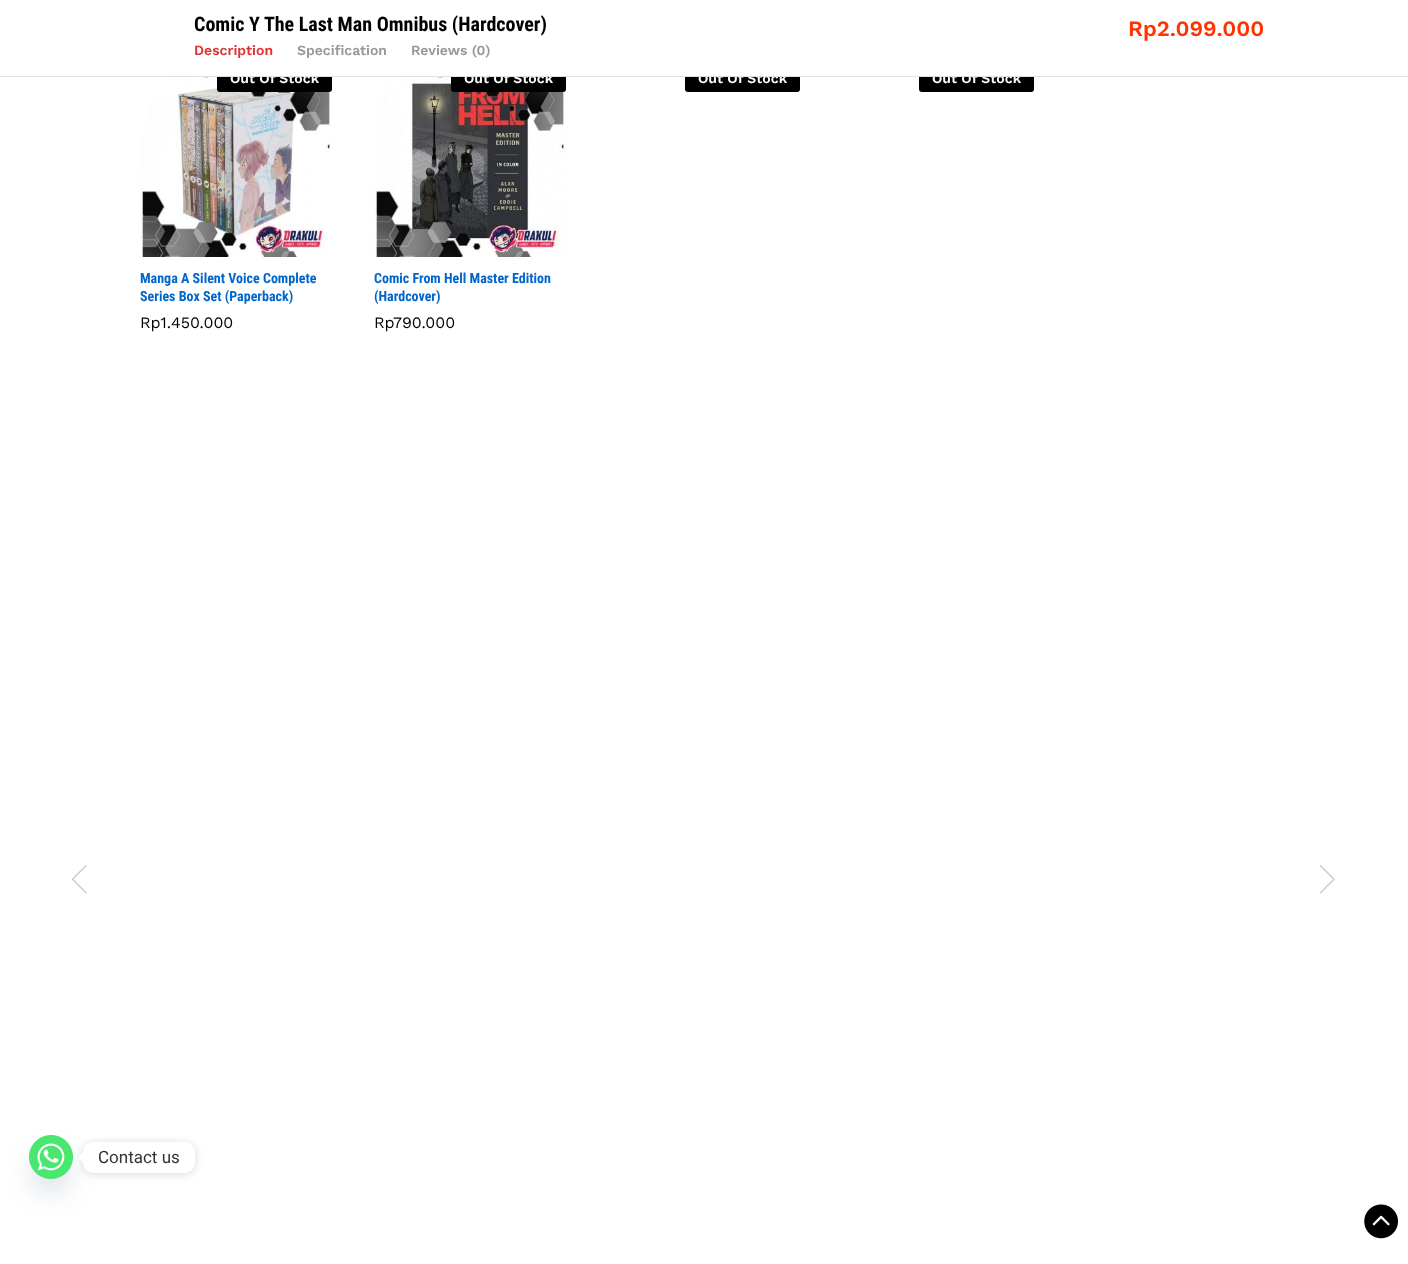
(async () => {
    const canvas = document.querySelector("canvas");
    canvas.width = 1408;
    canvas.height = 1264;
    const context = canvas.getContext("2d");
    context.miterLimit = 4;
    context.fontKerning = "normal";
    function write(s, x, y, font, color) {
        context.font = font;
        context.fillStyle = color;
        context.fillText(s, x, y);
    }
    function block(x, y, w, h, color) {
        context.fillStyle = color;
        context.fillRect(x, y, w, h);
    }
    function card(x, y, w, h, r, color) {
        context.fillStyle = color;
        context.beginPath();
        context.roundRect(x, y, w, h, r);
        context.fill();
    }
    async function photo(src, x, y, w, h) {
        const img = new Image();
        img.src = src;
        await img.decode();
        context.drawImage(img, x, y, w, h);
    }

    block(0, 0, 1408, 1264, "rgb(255, 255, 255)");
    await photo("media/1.png", 140, 77, 190, 180);
    card(217, 65, 115, 27, 3, "rgb(0, 0, 0)");
    await photo("media/2.png", 374, 77, 190, 180);
    card(451, 65, 115, 27, 3, "rgb(0, 0, 0)");
    card(685, 65, 115, 27, 3, "rgb(0, 0, 0)");
    card(919, 65, 115, 27, 3, "rgb(0, 0, 0)");
    block(217, 65, 817, 11, "rgb(255, 255, 255)");
    write("Out Of Stock", 230, 83, "600 14px Work Sans", "rgb(255, 255, 255)");
    write("Out Of Stock", 464, 83, "600 14px Work Sans", "rgb(255, 255, 255)");
    write("Out Of Stock", 698, 83, "600 14px Work Sans", "rgb(255, 255, 255)");
    write("Out Of Stock", 932, 83, "600 14px Work Sans", "rgb(255, 255, 255)");
    block(0, 76, 1408, 1, "rgb(225, 225, 225)");
    write("Comic Y The Last Man Omnibus (Hardcover)", 194, 31, "bold 20px Roboto Condensed", "rgb(0, 0, 0)");
    write("Description", 194, 55, "600 14px Work Sans", "rgb(221, 51, 51)");
    write("Specification", 297, 55, "600 14px Work Sans", "rgb(153, 153, 153)");
    write("Reviews (0)", 411, 55, "600 14px Work Sans", "rgb(153, 153, 153)");
    write("Rp2.099.000", 1128, 36, "600 22px Work Sans", "rgb(255, 51, 0)");
    write("Manga A Silent Voice Complete", 140, 283, "bold 14px Roboto Condensed", "rgb(0, 102, 204)");
    write("Series Box Set (Paperback)", 140, 301, "bold 14px Roboto Condensed", "rgb(0, 102, 204)");
    write("Rp1.450.000", 140, 328, "16px Work Sans", "rgb(0, 0, 0)");
    write("Comic From Hell Master Edition", 374, 283, "bold 14px Roboto Condensed", "rgb(0, 102, 204)");
    write("(Hardcover)", 374, 301, "bold 14px Roboto Condensed", "rgb(0, 102, 204)");
    write("Rp", 374, 328, "16px Work Sans", "rgb(0, 0, 0)");
    write("790.000", 393, 328, "16px Work Sans", "rgb(0, 0, 0)");
    await photo("media/3.png", 71, 865, 16, 29);
    await photo("media/4.png", 1319, 865, 16, 29);
    context.fillStyle = "rgba(73, 104, 126, 0.16)";
    context.filter = "blur(12px)";
    context.beginPath();
    context.roundRect(29, 1151, 44, 44, 22);
    context.fill();
    context.filter = "none";
    await photo("media/5.png", 29, 1135, 44, 44);
    context.fillStyle = "rgba(0, 0, 0, 0.15)";
    context.filter = "blur(4px)";
    context.beginPath();
    context.roundRect(83, 1143, 112, 31, 10);
    context.fill();
    context.filter = "none";
    card(83, 1142, 112, 31, 10, "rgb(255, 255, 255)");
    context.beginPath();
    context.moveTo(83, 1152.5);
    context.lineTo(83, 1162.5);
    context.lineTo(78, 1157.5);
    context.closePath();
    context.fill();
    write("Contact us", 98, 1163, "17px Roboto", "rgb(51, 51, 51)");
    await photo("media/6.png", 1364, 1204, 34, 35);
})();
